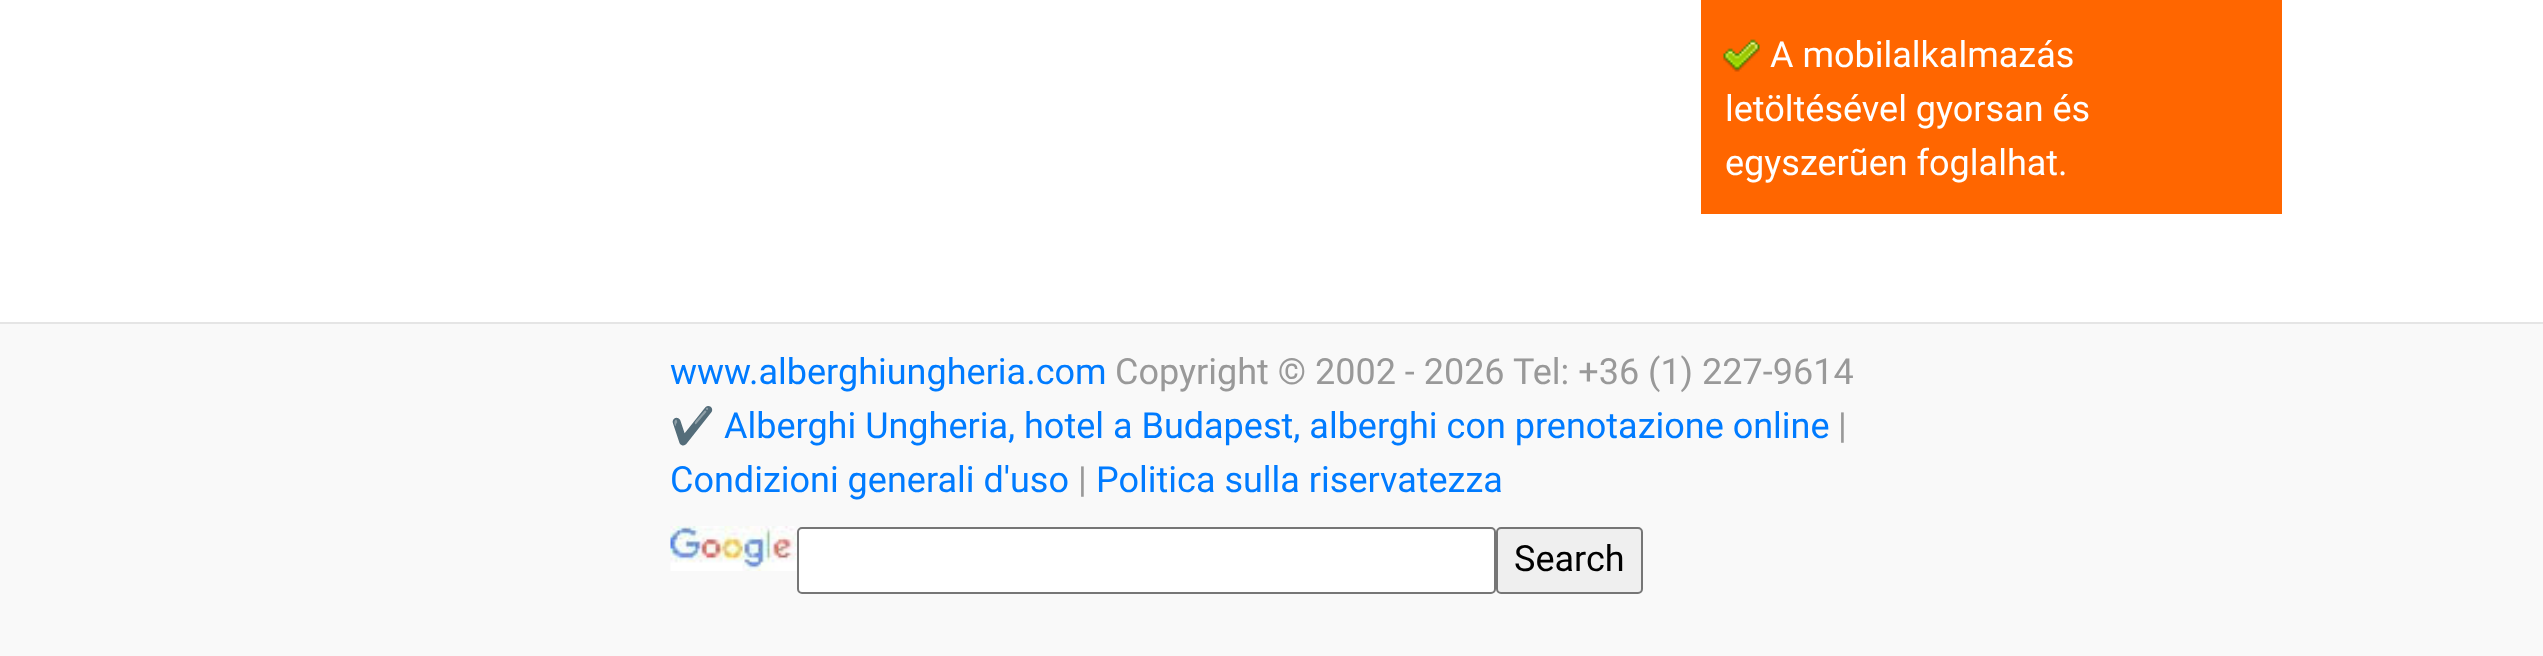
(async () => {
    const canvas = document.querySelector("canvas");
    canvas.width = 2543;
    canvas.height = 656;
    const context = canvas.getContext("2d");
    context.miterLimit = 4;
    context.fontKerning = "normal";
    function write(s, x, y, font, color) {
        context.font = font;
        context.fillStyle = color;
        context.fillText(s, x, y);
    }
    function block(x, y, w, h, color) {
        context.fillStyle = color;
        context.fillRect(x, y, w, h);
    }
    async function photo(src, x, y, w, h) {
        const img = new Image();
        img.src = src;
        await img.decode();
        context.drawImage(img, x, y, w, h);
    }

    block(0, 0, 2543, 656, "rgb(255, 255, 255)");
    block(1701, 0, 581, 214, "rgb(255, 102, 0)");
    await photo("media/1.png", 1723, 39, 37, 33);
    write("A mobilalkalmazás", 1770, 67, "36px Roboto", "rgb(255, 255, 255)");
    write("letöltésével gyorsan és", 1725, 121, "36px Roboto", "rgb(255, 255, 255)");
    write("egyszerũen foglalhat.", 1725, 175, "36px Roboto", "rgb(255, 255, 255)");
    block(0, 324, 2543, 332, "rgb(249, 249, 249)");
    block(0, 322, 2543, 2, "rgb(229, 229, 229)");
    write("www.alberghiungheria.com", 670, 384, "36px Roboto", "rgb(0, 123, 255)");
    write("Copyright © 2002 - 2026", 1115, 384, "36px Roboto", "rgb(153, 153, 153)");
    write("Tel: +36 (1) 227-9614", 1513, 384, "36px Roboto", "rgb(153, 153, 153)");
    write("✔️", 670, 438, "36px Noto Color Emoji", "rgb(0, 123, 255)");
    write("Alberghi Ungheria, hotel a Budapest, alberghi con prenotazione online", 724, 438, "36px Roboto", "rgb(0, 123, 255)");
    write("|", 1838, 438, "36px Roboto", "rgb(153, 153, 153)");
    write("Condizioni generali d'uso", 670, 492, "36px Roboto", "rgb(0, 123, 255)");
    write("|", 1078, 492, "36px Roboto", "rgb(153, 153, 153)");
    write("Politica sulla riservatezza", 1096, 492, "36px Roboto", "rgb(0, 123, 255)");
    await photo("media/2.png", 670, 526, 127, 45);
    context.fillStyle = "rgb(255, 255, 255)";
    context.beginPath();
    context.roundRect(798, 528, 697, 65, 4);
    context.fill();
    context.strokeStyle = "rgb(118, 118, 118)";
    context.lineWidth = 2;
    context.stroke();
    context.fillStyle = "rgb(239, 239, 239)";
    context.beginPath();
    context.roundRect(1497, 528, 145, 65, 4);
    context.fill();
    context.stroke();
    write("Search", 1514, 571, "36px Roboto", "rgb(0, 0, 0)");
})();
